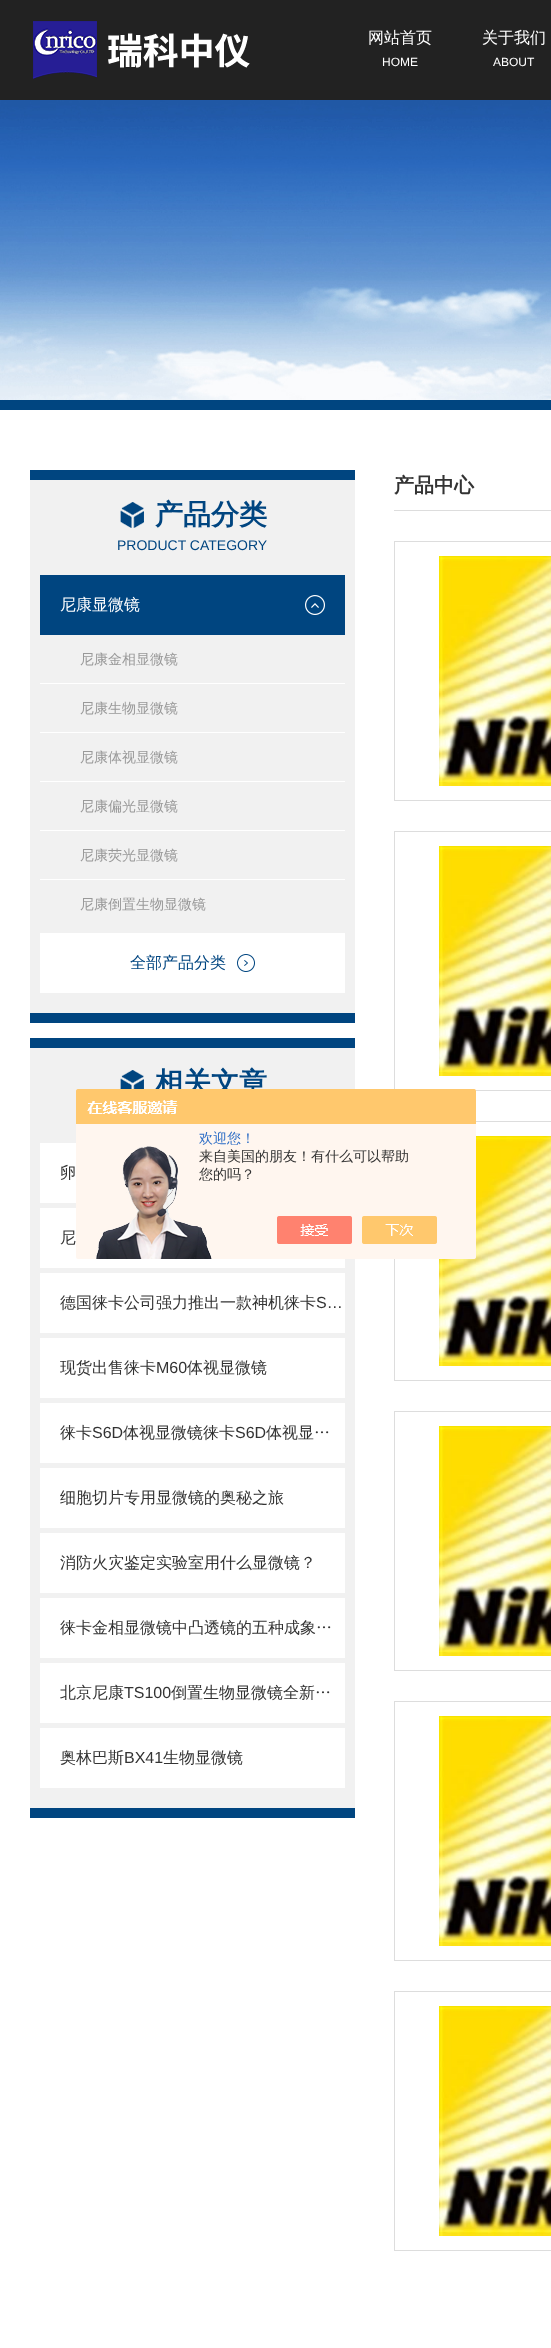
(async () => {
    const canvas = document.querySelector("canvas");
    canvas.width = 551;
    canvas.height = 2348;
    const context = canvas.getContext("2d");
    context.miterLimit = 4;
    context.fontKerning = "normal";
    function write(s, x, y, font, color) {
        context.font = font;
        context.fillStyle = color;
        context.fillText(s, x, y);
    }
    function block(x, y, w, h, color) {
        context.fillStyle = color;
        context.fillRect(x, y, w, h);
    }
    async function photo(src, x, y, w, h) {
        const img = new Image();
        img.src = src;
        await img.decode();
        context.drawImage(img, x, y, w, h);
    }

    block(0, 0, 551, 2348, "rgb(255, 255, 255)");
    block(0, 0, 551, 100, "rgb(34, 34, 34)");
    await photo("media/1.png", 33, 21, 217, 58);
    write("网站首页", 368, 43, "500 16px WenQuanYi Zen Hei", "rgb(255, 255, 255)");
    write("HOME", 382, 66, "12px Liberation Sans", "rgb(255, 255, 255)");
    write("关于我们", 482, 43, "500 16px WenQuanYi Zen Hei", "rgb(255, 255, 255)");
    write("ABOUT", 493, 66, "12px Liberation Sans", "rgb(255, 255, 255)");
    block(0, 400, 551, 10, "rgb(0, 69, 128)");
    await photo("media/2.png", 0, 100, 551, 300);
    block(394, 510, 157, 1, "rgb(221, 221, 221)");
    write("产品中心", 394, 492, "bold 20px WenQuanYi Zen Hei", "rgb(51, 51, 51)");
    context.strokeStyle = "rgb(221, 221, 221)";
    context.strokeRect(394.5, 541.5, 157, 259);
    await photo("media/3.png", 439, 556, 112, 230);
    context.strokeRect(394.5, 831.5, 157, 259);
    await photo("media/4.png", 439, 846, 112, 230);
    context.strokeRect(394.5, 1121.5, 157, 259);
    await photo("media/3.png", 439, 1136, 112, 230);
    context.strokeRect(394.5, 1411.5, 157, 259);
    await photo("media/3.png", 439, 1426, 112, 230);
    context.strokeRect(394.5, 1701.5, 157, 259);
    await photo("media/3.png", 439, 1716, 112, 230);
    context.strokeRect(394.5, 1991.5, 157, 259);
    await photo("media/3.png", 439, 2006, 112, 230);
    block(30, 480, 325, 533, "rgb(241, 241, 241)");
    block(30, 470, 325, 10, "rgb(0, 69, 128)");
    block(30, 1013, 325, 10, "rgb(0, 69, 128)");
    await photo("media/5.png", 120, 502, 24, 26);
    write("产品分类", 155, 524, "bold 28px WenQuanYi Zen Hei", "rgb(0, 69, 128)");
    write("PRODUCT CATEGORY", 117, 550, "14px Liberation Sans", "rgb(0, 69, 128)");
    block(40, 575, 305, 60, "rgb(0, 69, 128)");
    write("尼康显微镜", 60, 610, "500 16px WenQuanYi Zen Hei", "rgb(255, 255, 255)");
    await photo("media/6.png", 305, 595, 20, 20);
    write("尼康金相显微镜", 80, 664, "500 14px WenQuanYi Zen Hei", "rgb(153, 153, 153)");
    block(40, 683, 305, 1, "rgb(255, 255, 255)");
    write("尼康生物显微镜", 80, 713, "500 14px WenQuanYi Zen Hei", "rgb(153, 153, 153)");
    block(40, 732, 305, 1, "rgb(255, 255, 255)");
    write("尼康体视显微镜", 80, 762, "500 14px WenQuanYi Zen Hei", "rgb(153, 153, 153)");
    block(40, 781, 305, 1, "rgb(255, 255, 255)");
    write("尼康偏光显微镜", 80, 811, "500 14px WenQuanYi Zen Hei", "rgb(153, 153, 153)");
    block(40, 830, 305, 1, "rgb(255, 255, 255)");
    write("尼康荧光显微镜", 80, 860, "500 14px WenQuanYi Zen Hei", "rgb(153, 153, 153)");
    block(40, 879, 305, 1, "rgb(255, 255, 255)");
    write("尼康倒置生物显微镜", 80, 909, "500 14px WenQuanYi Zen Hei", "rgb(153, 153, 153)");
    block(40, 933, 305, 60, "rgb(255, 255, 255)");
    write("全部产品分类", 130, 968, "500 16px WenQuanYi Zen Hei", "rgb(0, 69, 128)");
    await photo("media/7.png", 237, 954, 18, 18);
    block(30, 1048, 325, 760, "rgb(241, 241, 241)");
    block(30, 1038, 325, 10, "rgb(0, 69, 128)");
    block(30, 1808, 325, 10, "rgb(0, 69, 128)");
    await photo("media/8.png", 120, 1070, 24, 19);
    write("相关文章", 155, 1092, "bold 28px WenQuanYi Zen Hei", "rgb(0, 69, 128)");
    block(40, 1143, 36, 60, "rgb(255, 255, 255)");
    write("卵", 60, 1178, "500 16px WenQuanYi Zen Hei", "rgb(51, 51, 51)");
    block(40, 1208, 305, 60, "rgb(255, 255, 255)");
    write("尼", 60, 1243, "500 16px WenQuanYi Zen Hei", "rgb(51, 51, 51)");
    block(40, 1273, 305, 60, "rgb(255, 255, 255)");
    write("德国徕卡公司强力推出一款神机徕卡", 60, 1308, "500 16px WenQuanYi Zen Hei", "rgb(51, 51, 51)");
    write("S…", 316, 1308, "16px Liberation Sans", "rgb(51, 51, 51)");
    block(40, 1338, 305, 60, "rgb(255, 255, 255)");
    write("现货出售徕卡", 60, 1373, "500 16px WenQuanYi Zen Hei", "rgb(51, 51, 51)");
    write("M60", 156, 1373, "16px Liberation Sans", "rgb(51, 51, 51)");
    write("体视显微镜", 187, 1373, "500 16px WenQuanYi Zen Hei", "rgb(51, 51, 51)");
    block(40, 1403, 305, 60, "rgb(255, 255, 255)");
    write("徕卡", 60, 1438, "500 16px WenQuanYi Zen Hei", "rgb(51, 51, 51)");
    write("S6D", 92, 1438, "16px Liberation Sans", "rgb(51, 51, 51)");
    write("体视显微镜徕卡", 123, 1438, "500 16px WenQuanYi Zen Hei", "rgb(51, 51, 51)");
    write("S6D", 235, 1438, "16px Liberation Sans", "rgb(51, 51, 51)");
    write("体视显…", 266, 1438, "500 16px WenQuanYi Zen Hei", "rgb(51, 51, 51)");
    block(40, 1468, 305, 60, "rgb(255, 255, 255)");
    write("细胞切片专用显微镜的奥秘之旅", 60, 1503, "500 16px WenQuanYi Zen Hei", "rgb(51, 51, 51)");
    block(40, 1533, 305, 60, "rgb(255, 255, 255)");
    write("消防火灾鉴定实验室用什么显微镜？", 60, 1568, "500 16px WenQuanYi Zen Hei", "rgb(51, 51, 51)");
    block(40, 1598, 305, 60, "rgb(255, 255, 255)");
    write("徕卡金相显微镜中凸透镜的五种成象…", 60, 1633, "500 16px WenQuanYi Zen Hei", "rgb(51, 51, 51)");
    block(40, 1663, 305, 60, "rgb(255, 255, 255)");
    write("北京尼康", 60, 1698, "500 16px WenQuanYi Zen Hei", "rgb(51, 51, 51)");
    write("TS100", 124, 1698, "16px Liberation Sans", "rgb(51, 51, 51)");
    write("倒置生物显微镜全新…", 171, 1698, "500 16px WenQuanYi Zen Hei", "rgb(51, 51, 51)");
    block(40, 1728, 305, 60, "rgb(255, 255, 255)");
    write("奥林巴斯", 60, 1763, "500 16px WenQuanYi Zen Hei", "rgb(51, 51, 51)");
    write("BX41", 124, 1763, "16px Liberation Sans", "rgb(51, 51, 51)");
    write("生物显微镜", 163, 1763, "500 16px WenQuanYi Zen Hei", "rgb(51, 51, 51)");
    await photo("media/9.png", 76, 1089, 400, 170);
    write("欢迎您！", 199, 1143, "500 14px WenQuanYi Zen Hei", "rgb(46, 110, 198)");
    write("来自美国的朋友！有什么可以帮助", 199, 1161, "500 14px WenQuanYi Zen Hei", "rgb(51, 51, 51)");
    write("您的吗？", 199, 1179, "500 14px WenQuanYi Zen Hei", "rgb(51, 51, 51)");
})();
